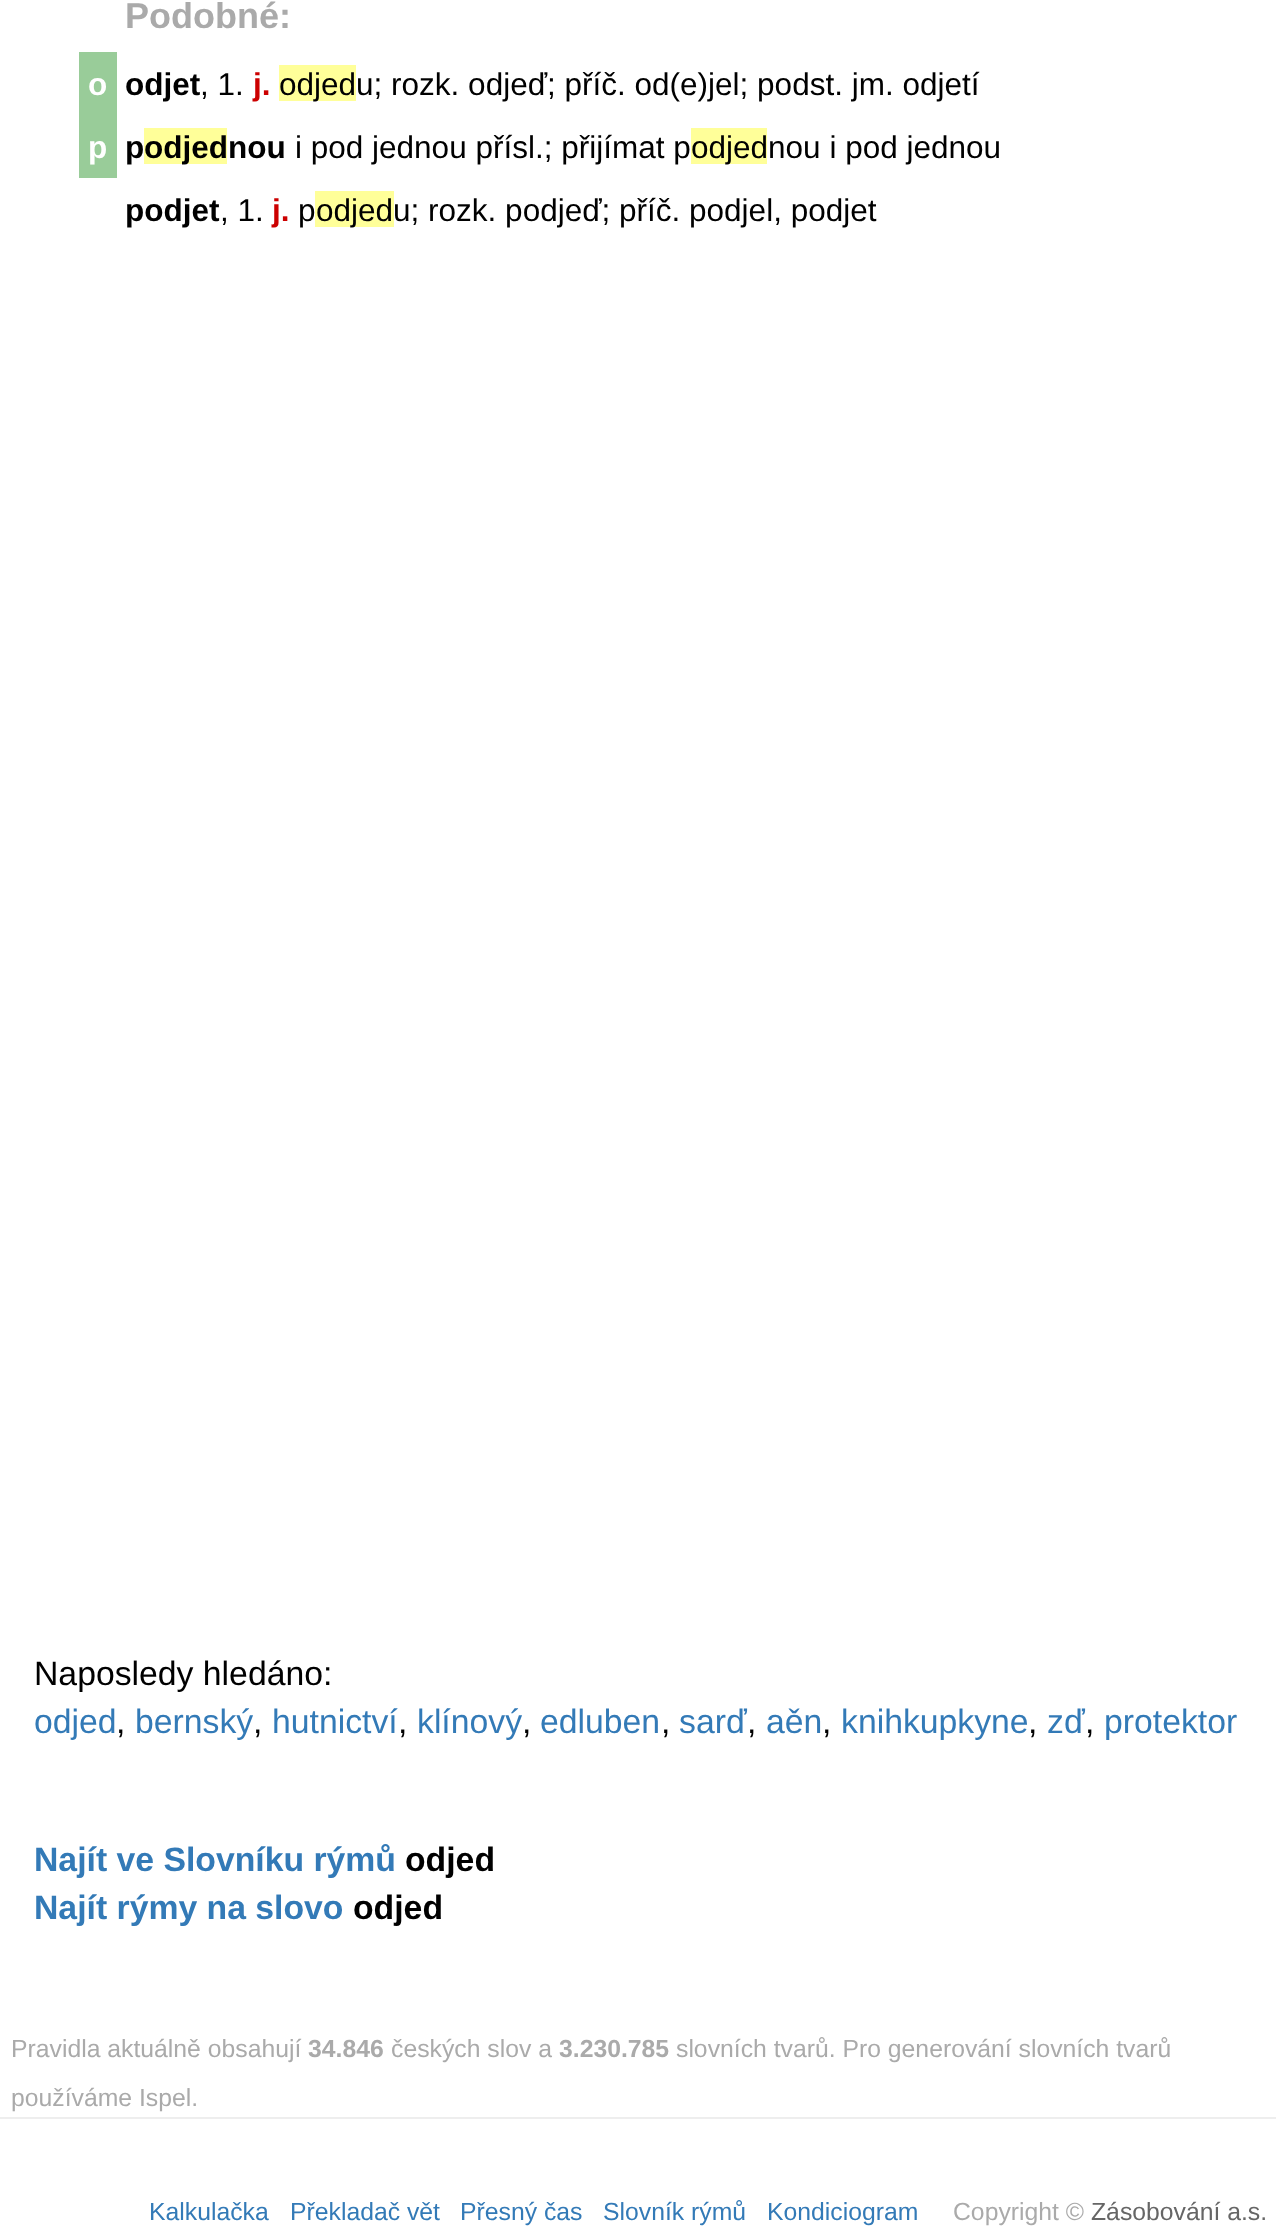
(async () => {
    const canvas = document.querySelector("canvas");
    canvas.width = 1276;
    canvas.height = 2239;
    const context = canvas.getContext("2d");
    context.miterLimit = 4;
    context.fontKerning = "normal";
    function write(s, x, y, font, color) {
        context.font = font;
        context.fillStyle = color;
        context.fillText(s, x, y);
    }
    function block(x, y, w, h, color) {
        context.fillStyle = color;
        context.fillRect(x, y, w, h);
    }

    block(0, 0, 1276, 2239, "rgb(255, 255, 255)");
    write("Podobné:", 125, 28, "bold 36px Liberation Sans", "rgb(170, 170, 170)");
    block(79, 52, 38, 126, "rgb(153, 204, 153)");
    write("o", 88, 95, "bold 31.5px Liberation Sans", "rgb(255, 255, 255)");
    write("odjet", 125, 95, "bold 31.5px Liberation Sans", "rgb(0, 0, 0)");
    write(", 1.", 200, 95, "31.5px Liberation Sans", "rgb(0, 0, 0)");
    write("j.", 253, 95, "bold 31.5px Liberation Sans", "rgb(204, 0, 0)");
    block(279, 65, 77, 36, "rgb(255, 255, 153)");
    write("odjedu; rozk. odjeď; příč. od(e)jel; podst. jm. odjetí", 279, 95, "31.5px Liberation Sans", "rgb(0, 0, 0)");
    write("p", 88, 158, "bold 31.5px Liberation Sans", "rgb(255, 255, 255)");
    write("p", 125, 158, "bold 31.5px Liberation Sans", "rgb(0, 0, 0)");
    block(144, 128, 83, 36, "rgb(255, 255, 153)");
    write("odjednou", 144, 158, "bold 31.5px Liberation Sans", "rgb(0, 0, 0)");
    write("i pod jednou přísl.; přijímat p", 295, 158, "31.5px Liberation Sans", "rgb(0, 0, 0)");
    block(691, 128, 76, 36, "rgb(255, 255, 153)");
    write("odjednou i pod jednou", 691, 158, "31.5px Liberation Sans", "rgb(0, 0, 0)");
    write("podjet", 125, 221, "bold 31.5px Liberation Sans", "rgb(0, 0, 0)");
    write(", 1.", 220, 221, "31.5px Liberation Sans", "rgb(0, 0, 0)");
    write("j.", 272, 221, "bold 31.5px Liberation Sans", "rgb(204, 0, 0)");
    write("p", 298, 221, "31.5px Liberation Sans", "rgb(0, 0, 0)");
    block(315, 191, 79, 36, "rgb(255, 255, 153)");
    write("odjedu; rozk. podjeď; příč. podjel, podjet", 316, 221, "31.5px Liberation Sans", "rgb(0, 0, 0)");
    write("Naposledy hledáno:", 34, 1685, "33.75px Liberation Sans", "rgb(0, 0, 0)");
    write("odjed", 34, 1733, "33.75px Liberation Sans", "rgb(51, 122, 183)");
    write(",", 116, 1733, "33.75px Liberation Sans", "rgb(0, 0, 0)");
    write("bernský", 135, 1733, "33.75px Liberation Sans", "rgb(51, 122, 183)");
    write(",", 253, 1733, "33.75px Liberation Sans", "rgb(0, 0, 0)");
    write("hutnictví", 272, 1733, "33.75px Liberation Sans", "rgb(51, 122, 183)");
    write(",", 398, 1733, "33.75px Liberation Sans", "rgb(0, 0, 0)");
    write("klínový", 417, 1733, "33.75px Liberation Sans", "rgb(51, 122, 183)");
    write(",", 522, 1733, "33.75px Liberation Sans", "rgb(0, 0, 0)");
    write("edluben", 540, 1733, "33.75px Liberation Sans", "rgb(51, 122, 183)");
    write(",", 661, 1733, "33.75px Liberation Sans", "rgb(0, 0, 0)");
    write("sarď", 679, 1733, "33.75px Liberation Sans", "rgb(51, 122, 183)");
    write(",", 747, 1733, "33.75px Liberation Sans", "rgb(0, 0, 0)");
    write("aěn", 766, 1733, "33.75px Liberation Sans", "rgb(51, 122, 183)");
    write(",", 822, 1733, "33.75px Liberation Sans", "rgb(0, 0, 0)");
    write("knihkupkyne", 841, 1733, "33.75px Liberation Sans", "rgb(51, 122, 183)");
    write(",", 1028, 1733, "33.75px Liberation Sans", "rgb(0, 0, 0)");
    write("zď", 1047, 1733, "33.75px Liberation Sans", "rgb(51, 122, 183)");
    write(",", 1085, 1733, "33.75px Liberation Sans", "rgb(0, 0, 0)");
    write("protektor", 1104, 1733, "33.75px Liberation Sans", "rgb(51, 122, 183)");
    write("Najít ve Slovníku rýmů", 34, 1871, "bold 33.75px Liberation Sans", "rgb(51, 122, 183)");
    write("odjed", 405, 1871, "bold 33.75px Liberation Sans", "rgb(0, 0, 0)");
    write("Najít rýmy na slovo", 34, 1919, "bold 33.75px Liberation Sans", "rgb(51, 122, 183)");
    write("odjed", 353, 1919, "bold 33.75px Liberation Sans", "rgb(0, 0, 0)");
    write("Pravidla aktuálně obsahují", 11, 2057, "24.75px Liberation Sans", "rgb(170, 170, 170)");
    write("34.846", 308, 2057, "bold 24.75px Liberation Sans", "rgb(170, 170, 170)");
    write("českých slov a", 391, 2057, "24.75px Liberation Sans", "rgb(170, 170, 170)");
    write("3.230.785", 559, 2057, "bold 24.75px Liberation Sans", "rgb(170, 170, 170)");
    write("slovních tvarů. Pro generování slovních tvarů", 676, 2057, "24.75px Liberation Sans", "rgb(170, 170, 170)");
    write("používáme Ispel.", 11, 2106, "24.75px Liberation Sans", "rgb(170, 170, 170)");
    block(0, 2117, 1276, 2, "rgb(238, 238, 238)");
    write("Kalkulačka", 149, 2220, "24.75px Liberation Sans", "rgb(51, 122, 183)");
    write("Překladač vět", 290, 2220, "24.75px Liberation Sans", "rgb(51, 122, 183)");
    write("Přesný čas", 460, 2220, "24.75px Liberation Sans", "rgb(51, 122, 183)");
    write("Slovník rýmů", 603, 2220, "24.75px Liberation Sans", "rgb(51, 122, 183)");
    write("Kondiciogram", 767, 2220, "24.75px Liberation Sans", "rgb(51, 122, 183)");
    write("Copyright ©", 953, 2220, "24.75px Liberation Sans", "rgb(170, 170, 170)");
    write("Zásobování a.s.", 1091, 2220, "24.75px Liberation Sans", "rgb(102, 102, 102)");
})();
